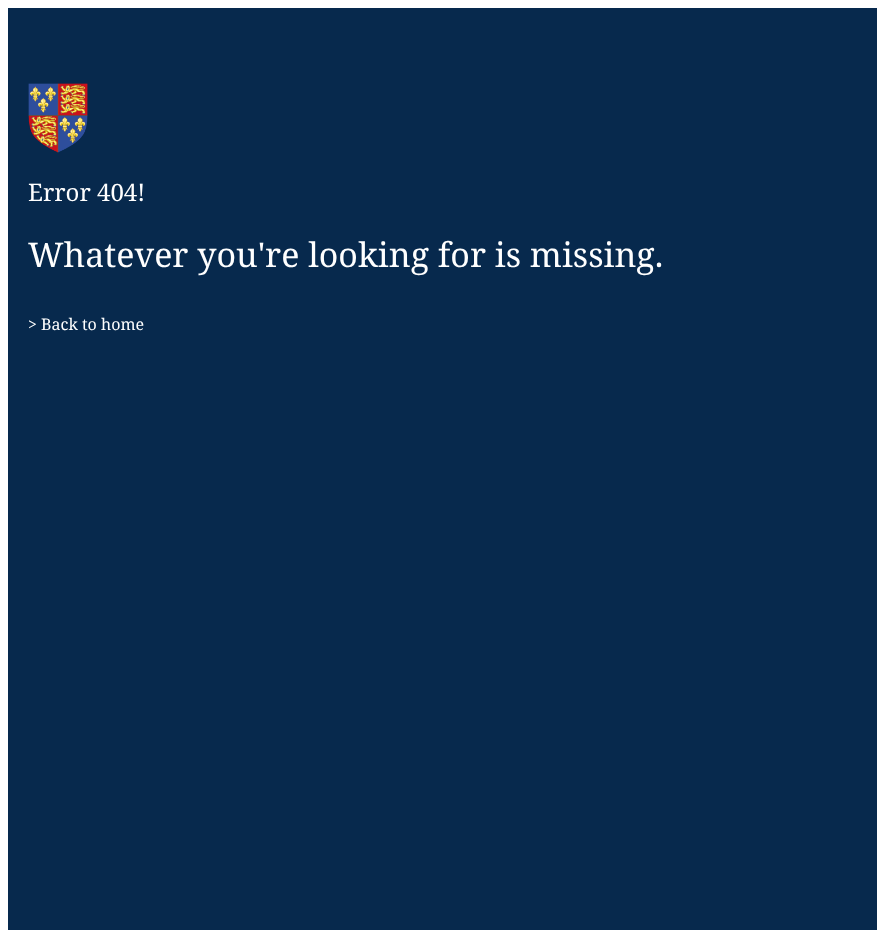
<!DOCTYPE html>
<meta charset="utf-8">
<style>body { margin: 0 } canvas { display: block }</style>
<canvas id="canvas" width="885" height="930"></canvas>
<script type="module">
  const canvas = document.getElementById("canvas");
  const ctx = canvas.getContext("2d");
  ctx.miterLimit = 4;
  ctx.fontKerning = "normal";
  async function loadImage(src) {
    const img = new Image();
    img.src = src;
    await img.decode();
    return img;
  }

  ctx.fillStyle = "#ffffff";
  ctx.fillRect(0, 0, 885, 930);
  ctx.fillStyle = "#07294d";
  ctx.fillRect(8, 8, 869, 922);
  ctx.drawImage(await loadImage("img1.png"), 28, 83, 60, 70);
  ctx.font = "24px Noto Serif";
  ctx.fillStyle = "#ffffff";
  ctx.fillText("Error 404!", 28, 201);
  ctx.font = "34px Noto Serif";
  ctx.fillText("Whatever you're looking for is missing.", 28, 267);
  ctx.font = "16px Noto Serif";
  ctx.fillText("> Back to home", 28, 330);
</script>
